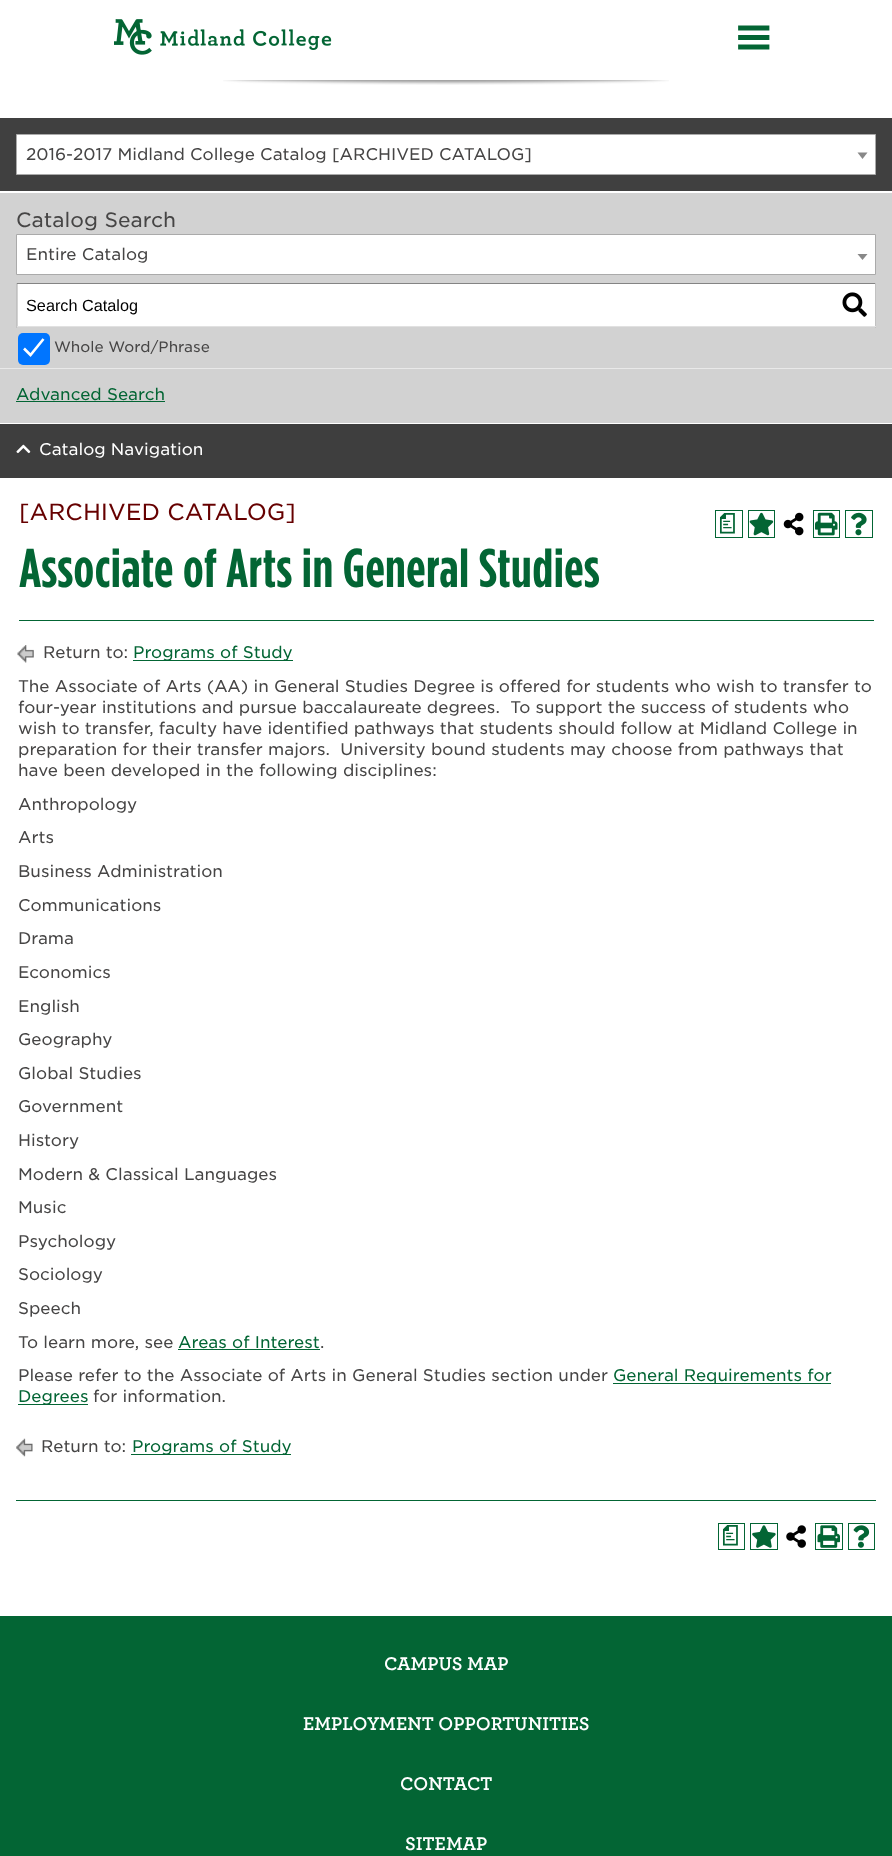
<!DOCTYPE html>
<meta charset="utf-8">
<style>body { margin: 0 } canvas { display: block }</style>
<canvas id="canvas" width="892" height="1856"></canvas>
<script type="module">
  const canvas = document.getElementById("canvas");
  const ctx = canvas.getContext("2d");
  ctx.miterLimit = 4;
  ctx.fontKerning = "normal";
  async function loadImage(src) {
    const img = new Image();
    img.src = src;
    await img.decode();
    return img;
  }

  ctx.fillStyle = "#ffffff";
  ctx.fillRect(0, 0, 892, 1856);
  ctx.drawImage(await loadImage("img1.png"), 114, 19, 218, 36);
  ctx.drawImage(await loadImage("img2.png"), 738, 25, 32, 25);
  ctx.drawImage(await loadImage("img3.png"), 223, 80, 446, 5);
  ctx.fillStyle = "#404040";
  ctx.fillRect(0, 118, 892, 73);
  ctx.fillStyle = "#ffffff";
  ctx.beginPath();
  ctx.rect(16.5, 134.5, 859, 40);
  ctx.fill();
  ctx.strokeStyle = "#aaaaaa";
  ctx.stroke();
  ctx.font = "300 16.25px 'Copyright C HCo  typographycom'";
  ctx.fillStyle = "#464545";
  ctx.fillText("2016-2017 Midland College Catalog [ARCHIVED CATALOG]", 26, 160);
  ctx.fillStyle = "#888888";
  ctx.beginPath();
  ctx.moveTo(857.5, 152.5);
  ctx.lineTo(867.5, 152.5);
  ctx.lineTo(862.5, 159);
  ctx.closePath();
  ctx.fill();
  ctx.fillStyle = "#d2d2d2";
  ctx.fillRect(0, 193, 892, 230);
  ctx.font = "300 20px 'Copyright C HCo  typographycom'";
  ctx.fillStyle = "#464545";
  ctx.fillText("Catalog Search", 16, 227);
  ctx.fillStyle = "#ffffff";
  ctx.beginPath();
  ctx.rect(16.5, 234.5, 859, 40);
  ctx.fill();
  ctx.stroke();
  ctx.font = "300 16.25px 'Copyright C HCo  typographycom'";
  ctx.fillStyle = "#464545";
  ctx.fillText("Entire Catalog", 26, 260);
  ctx.fillStyle = "#888888";
  ctx.beginPath();
  ctx.moveTo(857.5, 254);
  ctx.lineTo(867.5, 254);
  ctx.lineTo(862.5, 260);
  ctx.closePath();
  ctx.fill();
  ctx.fillStyle = "#ffffff";
  ctx.fillRect(18, 284, 857, 42);
  ctx.fillStyle = "#848484";
  ctx.fillRect(16, 283, 860, 1);
  ctx.fillStyle = "#c1c1c1";
  ctx.fillRect(875, 283, 1, 45);
  ctx.fillStyle = "#e1e1e1";
  ctx.fillRect(16, 326, 860, 1);
  ctx.fillStyle = "#c1c1c1";
  ctx.fillRect(16, 283, 1, 45);
  ctx.font = "16.25px Liberation Sans";
  ctx.fillStyle = "#000000";
  ctx.fillText("Search Catalog", 26, 311);
  ctx.drawImage(await loadImage("img4.png"), 842, 292, 25, 25);
  ctx.fillStyle = "#0075ff";
  ctx.beginPath();
  ctx.roundRect(18, 333, 32, 32, 5);
  ctx.fill();
  ctx.beginPath();
  ctx.moveTo(24, 348.5);
  ctx.lineTo(30.5, 355);
  ctx.lineTo(43.5, 339);
  ctx.strokeStyle = "#ffffff";
  ctx.lineWidth = 2.6;
  ctx.stroke();
  ctx.font = "300 14.6px 'Copyright C HCo  typographycom'";
  ctx.fillStyle = "#464545";
  ctx.fillText("Whole Word/Phrase", 54, 352);
  ctx.fillStyle = "#e9e9e9";
  ctx.fillRect(0, 368, 892, 1);
  ctx.font = "300 16.25px 'Copyright C HCo  typographycom'";
  ctx.fillStyle = "#036534";
  ctx.fillText("Advanced Search", 16, 400);
  ctx.fillRect(16, 401, 149, 1);
  ctx.fillStyle = "#3e3e3e";
  ctx.fillRect(0, 424, 892, 54);
  ctx.drawImage(await loadImage("img5.png"), 16, 444, 15, 10);
  ctx.fillStyle = "#ffffff";
  ctx.fillText("Catalog Navigation", 39, 455);
  ctx.font = "300 22.5px 'Copyright C HCo  typographycom'";
  ctx.fillStyle = "#660000";
  ctx.fillText("[ARCHIVED CATALOG]", 19, 520);
  ctx.strokeStyle = "#036534";
  ctx.lineWidth = 1;
  ctx.strokeRect(715.5, 510.5, 27, 27);
  ctx.font = "500 22.5px 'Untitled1'";
  ctx.fillStyle = "#036534";
  ctx.fillText("a", 716, 530);
  ctx.strokeRect(748.5, 510.5, 26, 27);
  ctx.drawImage(await loadImage("img6.png"), 749, 512, 25, 24);
  ctx.drawImage(await loadImage("img7.png"), 783, 512, 21, 24);
  ctx.strokeRect(813.5, 510.5, 26, 27);
  ctx.drawImage(await loadImage("img8.png"), 815, 512, 23, 24);
  ctx.strokeRect(845.5, 510.5, 27, 27);
  ctx.drawImage(await loadImage("img9.png"), 851, 512, 16, 24);
  ctx.font = "52.5px 'Copyright C HCo  typographycom'";
  ctx.fillText("Associate of Arts in General Studies", 19, 587);
  ctx.fillRect(19, 620, 855, 1);
  ctx.drawImage(await loadImage("img10.png"), 17, 645, 17, 18);
  ctx.font = "300 16.25px 'Copyright C HCo  typographycom'";
  ctx.fillStyle = "#464545";
  ctx.fillText("Return to:", 43, 658);
  ctx.fillStyle = "#036534";
  ctx.fillRect(133, 660, 160, 1);
  ctx.fillText("Programs of Study", 133, 658);
  ctx.fillStyle = "#464545";
  ctx.fillText("The Associate of Arts (AA) in General Studies Degree is offered for students who wish to transfer to", 18, 692);
  ctx.fillText("four-year institutions and pursue baccalaureate degrees.  To support the success of students who", 18, 713);
  ctx.fillText("wish to transfer, faculty have identified pathways that students should follow at Midland College in", 18, 734);
  ctx.fillText("preparation for their transfer majors.  University bound students may choose from pathways that", 18, 755);
  ctx.fillText("have been developed in the following disciplines:", 18, 776);
  ctx.fillText("Anthropology", 18, 810);
  ctx.fillText("Arts", 18, 843);
  ctx.fillText("Business Administration", 18, 877);
  ctx.fillText("Communications", 18, 911);
  ctx.fillText("Drama", 18, 944);
  ctx.fillText("Economics", 18, 978);
  ctx.fillText("English", 18, 1012);
  ctx.fillText("Geography", 18, 1045);
  ctx.fillText("Global Studies", 18, 1079);
  ctx.fillText("Government", 18, 1112);
  ctx.fillText("History", 18, 1146);
  ctx.fillText("Modern & Classical Languages", 18, 1180);
  ctx.fillText("Music", 18, 1213);
  ctx.fillText("Psychology", 18, 1247);
  ctx.fillText("Sociology", 18, 1280);
  ctx.fillText("Speech", 18, 1314);
  ctx.fillText("To learn more, see", 18, 1348);
  ctx.fillStyle = "#036534";
  ctx.fillText("Areas of Interest", 178, 1348);
  ctx.fillRect(178, 1349, 142, 1);
  ctx.fillStyle = "#464545";
  ctx.fillText(".", 320, 1348);
  ctx.fillText("Please refer to the Associate of Arts in General Studies section under", 18, 1381);
  ctx.fillStyle = "#036534";
  ctx.fillRect(613, 1383, 218, 1);
  ctx.fillText("General Requirements for", 613, 1381);
  ctx.fillRect(18, 1404, 70, 1);
  ctx.fillText("Degrees", 18, 1402);
  ctx.fillStyle = "#464545";
  ctx.fillText("for information.", 93, 1402);
  ctx.drawImage(await loadImage("img11.png"), 16, 1438, 17, 19);
  ctx.fillText("Return to:", 41, 1452);
  ctx.fillStyle = "#036534";
  ctx.fillRect(131, 1454, 160, 1);
  ctx.fillText("Programs of Study", 132, 1452);
  ctx.fillRect(16, 1500, 860, 1);
  ctx.strokeRect(718.5, 1523.5, 26, 26);
  ctx.font = "500 22.5px 'Untitled1'";
  ctx.fillText("a", 719, 1542);
  ctx.strokeRect(750.5, 1523.5, 27, 26);
  ctx.drawImage(await loadImage("img12.png"), 752, 1525, 24, 23);
  ctx.drawImage(await loadImage("img13.png"), 786, 1525, 20, 23);
  ctx.strokeRect(815.5, 1523.5, 27, 26);
  ctx.drawImage(await loadImage("img14.png"), 817, 1525, 23, 23);
  ctx.strokeRect(848.5, 1523.5, 26, 26);
  ctx.drawImage(await loadImage("img15.png"), 853, 1525, 17, 23);
  ctx.fillRect(0, 1616, 892, 240);
  ctx.font = "bold 17.5px 'Copyright C HCo  typographycom'";
  ctx.fillStyle = "#ffffff";
  ctx.fillText("CAMPUS MAP", 384, 1670);
  ctx.fillText("EMPLOYMENT OPPORTUNITIES", 303, 1730);
  ctx.fillText("CONTACT", 400, 1790);
  ctx.fillText("SITEMAP", 405, 1850);
</script>
